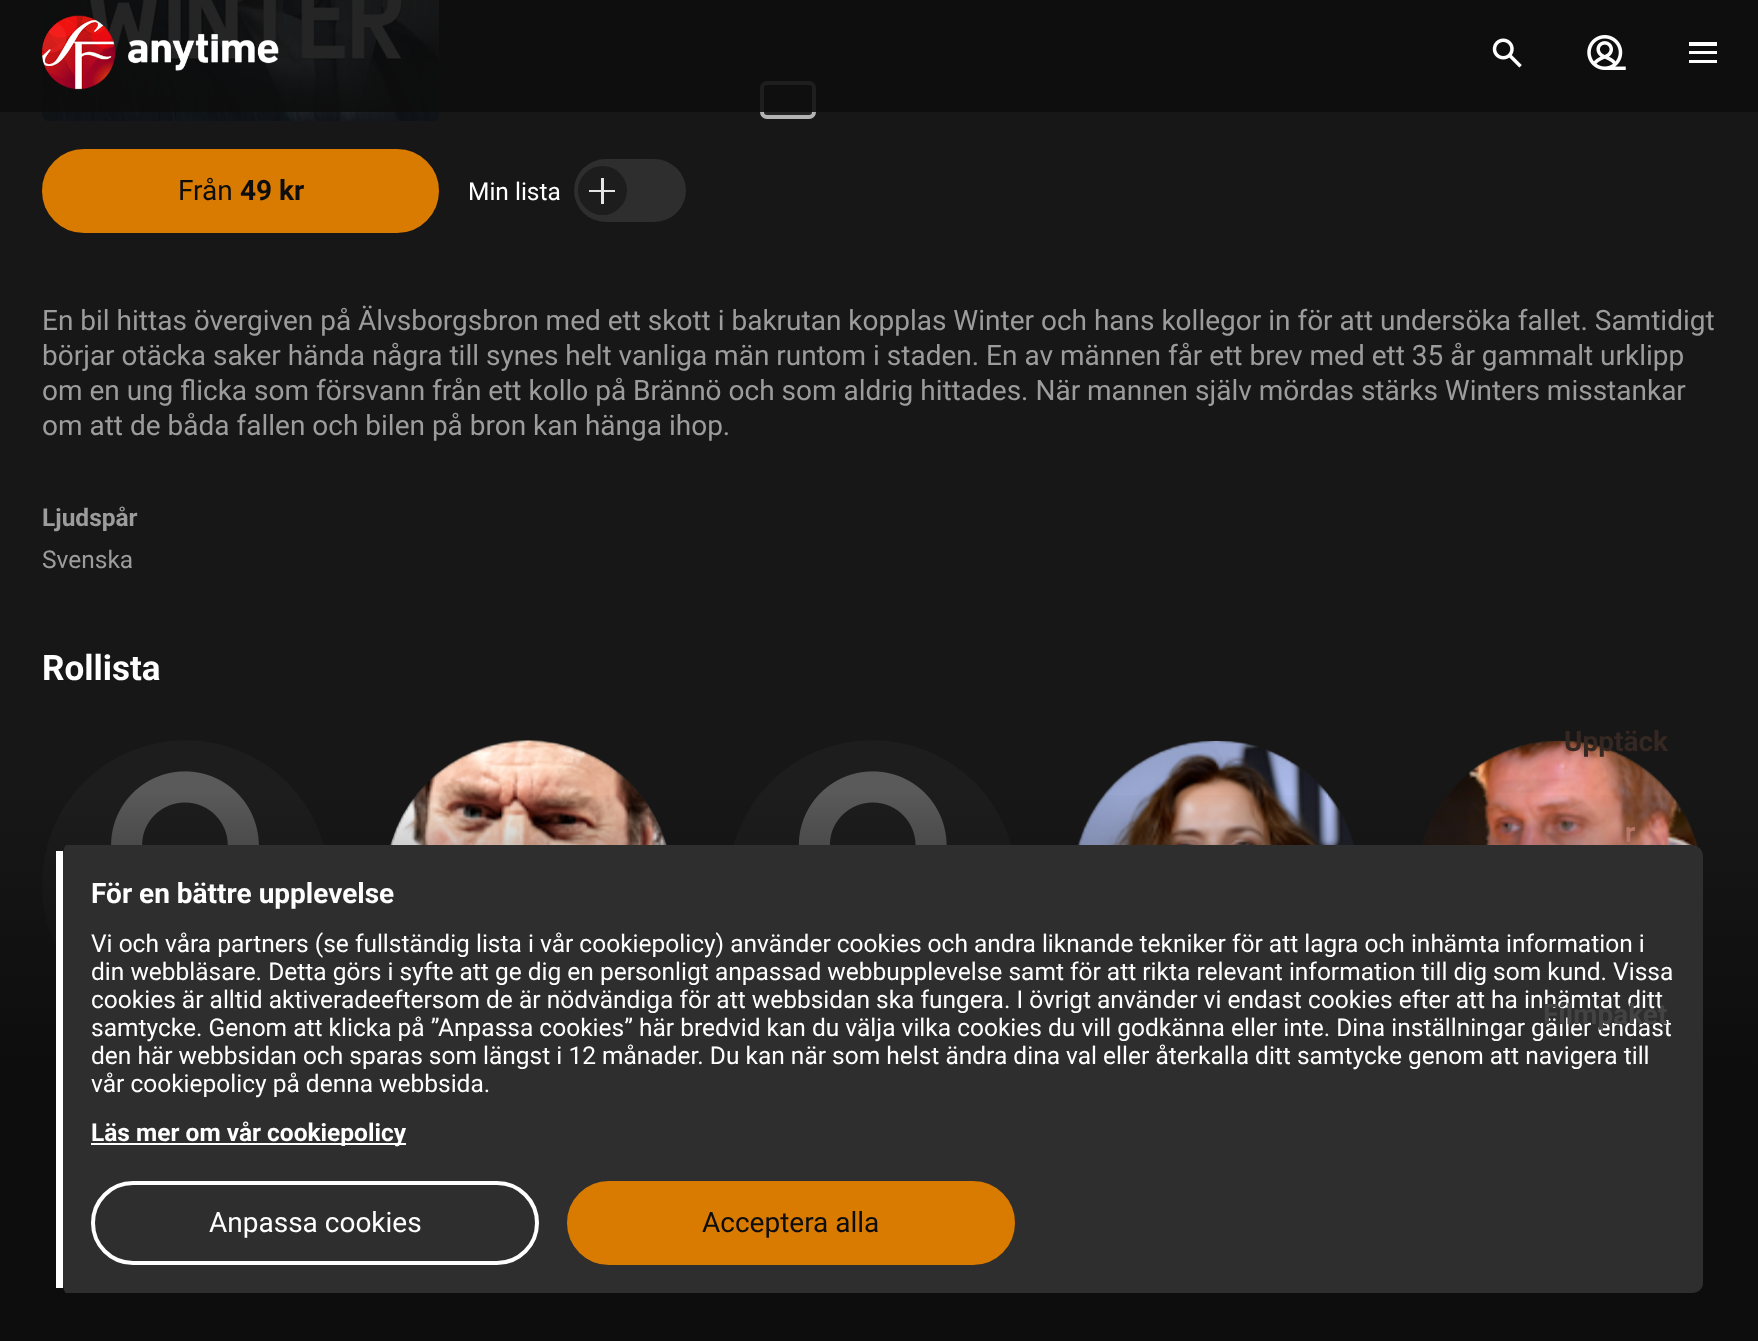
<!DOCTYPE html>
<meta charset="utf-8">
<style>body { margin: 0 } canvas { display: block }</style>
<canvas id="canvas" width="1758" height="1341"></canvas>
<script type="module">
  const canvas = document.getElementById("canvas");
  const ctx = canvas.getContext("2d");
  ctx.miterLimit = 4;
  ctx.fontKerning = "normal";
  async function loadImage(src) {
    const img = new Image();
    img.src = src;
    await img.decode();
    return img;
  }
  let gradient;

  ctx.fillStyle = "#171717";
  ctx.fillRect(0, 0, 1758, 1341);
  ctx.drawImage(await loadImage("img4.png"), 42, 0, 398, 121);
  ctx.fillStyle = "#232323";
  ctx.beginPath();
  ctx.roundRect(760, 81, 56, 38, 7);
  ctx.fill();
  ctx.beginPath();
  ctx.roundRect(762, 83, 52, 34, 5);
  ctx.strokeStyle = "rgba(229, 229, 229, 0.75)";
  ctx.lineWidth = 4;
  ctx.stroke();
  ctx.fillStyle = "rgba(13, 13, 13, 0.9)";
  ctx.fillRect(0, 0, 1758, 112);
  ctx.drawImage(await loadImage("img1.png"), 42, 15, 237, 75);
  ctx.drawImage(await loadImage("img2.png"), 1492, 38, 30, 30);
  ctx.drawImage(await loadImage("img3.png"), 1587, 35, 39, 35);
  ctx.fillStyle = "#ffffff";
  ctx.fillRect(1689, 60, 28, 3);
  ctx.fillRect(1689, 42, 28, 4);
  ctx.fillRect(1689, 51, 28, 3);
  ctx.fillStyle = "#d87b00";
  ctx.beginPath();
  ctx.roundRect(44, 151, 393, 80, 40);
  ctx.fill();
  ctx.strokeStyle = "#d87b00";
  ctx.stroke();
  ctx.font = "28px Roboto";
  ctx.fillStyle = "#0d0d0d";
  ctx.fillText("Från", 178, 200);
  ctx.font = "bold 28px Roboto";
  ctx.fillText("49 kr", 240, 200);
  ctx.font = "24.5px Roboto";
  ctx.fillStyle = "#ffffff";
  ctx.fillText("Min lista", 468, 200);
  ctx.fillStyle = "#2e2e2e";
  ctx.beginPath();
  ctx.roundRect(574, 159, 112, 63, 31.5);
  ctx.fill();
  ctx.fillStyle = "#1d1d1d";
  ctx.beginPath();
  ctx.arc(602.5, 190.5, 24.5, 0, Math.PI * 2);
  ctx.fill();
  ctx.fillStyle = "#e5e5e5";
  ctx.fillRect(589, 190, 26, 2);
  ctx.fillRect(601, 178, 3, 26);
  ctx.font = "28px Roboto";
  ctx.fillStyle = "#9c9c9c";
  ctx.fillText("En bil hittas övergiven på Älvsborgsbron med ett skott i bakrutan kopplas Winter och hans kollegor in för att undersöka fallet. Samtidigt", 42, 330);
  ctx.fillText("börjar otäcka saker hända några till synes helt vanliga män runtom i staden. En av männen får ett brev med ett 35 år gammalt urklipp", 42, 365);
  ctx.fillText("om en ung flicka som försvann från ett kollo på Brännö och som aldrig hittades. När mannen själv mördas stärks Winters misstankar", 42, 400);
  ctx.fillText("om att de båda fallen och bilen på bron kan hänga ihop.", 42, 435);
  ctx.font = "bold 24.5px Roboto";
  ctx.fillText("Ljudspår", 42, 526);
  ctx.font = "24.5px Roboto";
  ctx.fillText("Svenska", 42, 568);
  ctx.font = "bold 35px Roboto";
  ctx.fillStyle = "#ffffff";
  ctx.fillText("Rollista", 42, 680);
  ctx.fillStyle = "#1d1d1d";
  ctx.beginPath();
  ctx.roundRect(42, 740, 287, 289, 143.5);
  ctx.fill();
  ctx.drawImage(await loadImage("img5.png"), 111, 771, 148, 74);
  ctx.beginPath();
  ctx.roundRect(385, 740, 287, 289, 143.5);
  ctx.fill();
  ctx.drawImage(await loadImage("img6.png"), 390, 740, 277, 105);
  ctx.beginPath();
  ctx.arc(872.5, 884.5, 144.5, 0, Math.PI * 2);
  ctx.fill();
  ctx.drawImage(await loadImage("img7.png"), 798, 771, 149, 74);
  ctx.beginPath();
  ctx.roundRect(1073, 740, 287, 289, 143.5);
  ctx.fill();
  ctx.drawImage(await loadImage("img8.png"), 1077, 741, 278, 104);
  ctx.beginPath();
  ctx.roundRect(1416, 740, 287, 289, 143.5);
  ctx.fill();
  ctx.drawImage(await loadImage("img9.png"), 1420, 741, 279, 107);
  ctx.font = "bold 28px Roboto";
  ctx.fillStyle = "#352722";
  ctx.fillText("Upptäck", 1564, 751);
  gradient = ctx.createLinearGradient(879, 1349, 879, 789);
  gradient.addColorStop(0, "#0d0d0d");
  gradient.addColorStop(0.5, "#0d0d0d");
  gradient.addColorStop(1, "rgba(13, 13, 13, 0)");
  ctx.fillStyle = gradient;
  ctx.fillRect(0, 795, 1758, 546);
  ctx.fillStyle = "#b87767";
  ctx.fillText("r", 1625, 842);
  ctx.fillStyle = "#2e2e2e";
  ctx.beginPath();
  ctx.moveTo(66, 845);
  ctx.lineTo(1692, 845);
  ctx.bezierCurveTo(1698, 845, 1703, 850, 1703, 856);
  ctx.lineTo(1703, 1283);
  ctx.bezierCurveTo(1703, 1289, 1698, 1293, 1692, 1293);
  ctx.lineTo(66, 1293);
  ctx.bezierCurveTo(65, 1293, 63, 1289, 63, 1283);
  ctx.lineTo(63, 856);
  ctx.bezierCurveTo(63, 850, 65, 845, 66, 845);
  ctx.closePath();
  ctx.fill();
  ctx.font = "24.5px Roboto";
  ctx.fillStyle = "#ffffff";
  ctx.fillText("cookies är alltid aktiveradeeftersom de är nödvändiga för att webbsidan ska fungera. I övrigt använder vi endast cookies efter att ha inhämtat ditt", 91, 1008);
  ctx.fillText("samtycke. Genom att klicka på ”Anpassa cookies” här bredvid kan du välja vilka cookies du vill godkänna eller inte. Dina inställningar gäller endast", 91, 1036);
  ctx.font = "bold 28px Roboto";
  ctx.fillStyle = "#434343";
  ctx.fillText("Filmpaket", 1543, 1024);
  ctx.fillStyle = "#ffffff";
  ctx.fillRect(56, 851, 7, 437);
  ctx.fillText("För en bättre upplevelse", 91, 903);
  ctx.font = "24.5px Roboto";
  ctx.fillText("Vi och våra partners (se fullständig lista i vår cookiepolicy) använder cookies och andra liknande tekniker för att lagra och inhämta information i", 91, 952);
  ctx.fillText("din webbläsare. Detta görs i syfte att ge dig en personligt anpassad webbupplevelse samt för att rikta relevant information till dig som kund. Vissa", 91, 980);
  ctx.fillText("den här webbsidan och sparas som längst i 12 månader. Du kan när som helst ändra dina val eller återkalla ditt samtycke genom att navigera till", 91, 1064);
  ctx.fillText("vår cookiepolicy på denna webbsida.", 91, 1092);
  ctx.fillRect(91, 1143, 315, 2);
  ctx.font = "bold 24.5px Roboto";
  ctx.fillText("Läs mer om vår cookiepolicy", 91, 1141);
  ctx.beginPath();
  ctx.roundRect(93, 1183, 444, 80, 40);
  ctx.strokeStyle = "#ffffff";
  ctx.stroke();
  ctx.font = "28px Roboto";
  ctx.fillText("Anpassa cookies", 209, 1232);
  ctx.fillStyle = "#d87b00";
  ctx.beginPath();
  ctx.roundRect(569, 1183, 444, 80, 40);
  ctx.fill();
  ctx.strokeStyle = "#d87b00";
  ctx.stroke();
  ctx.fillStyle = "#0d0d0d";
  ctx.fillText("Acceptera alla", 702, 1232);
</script>
